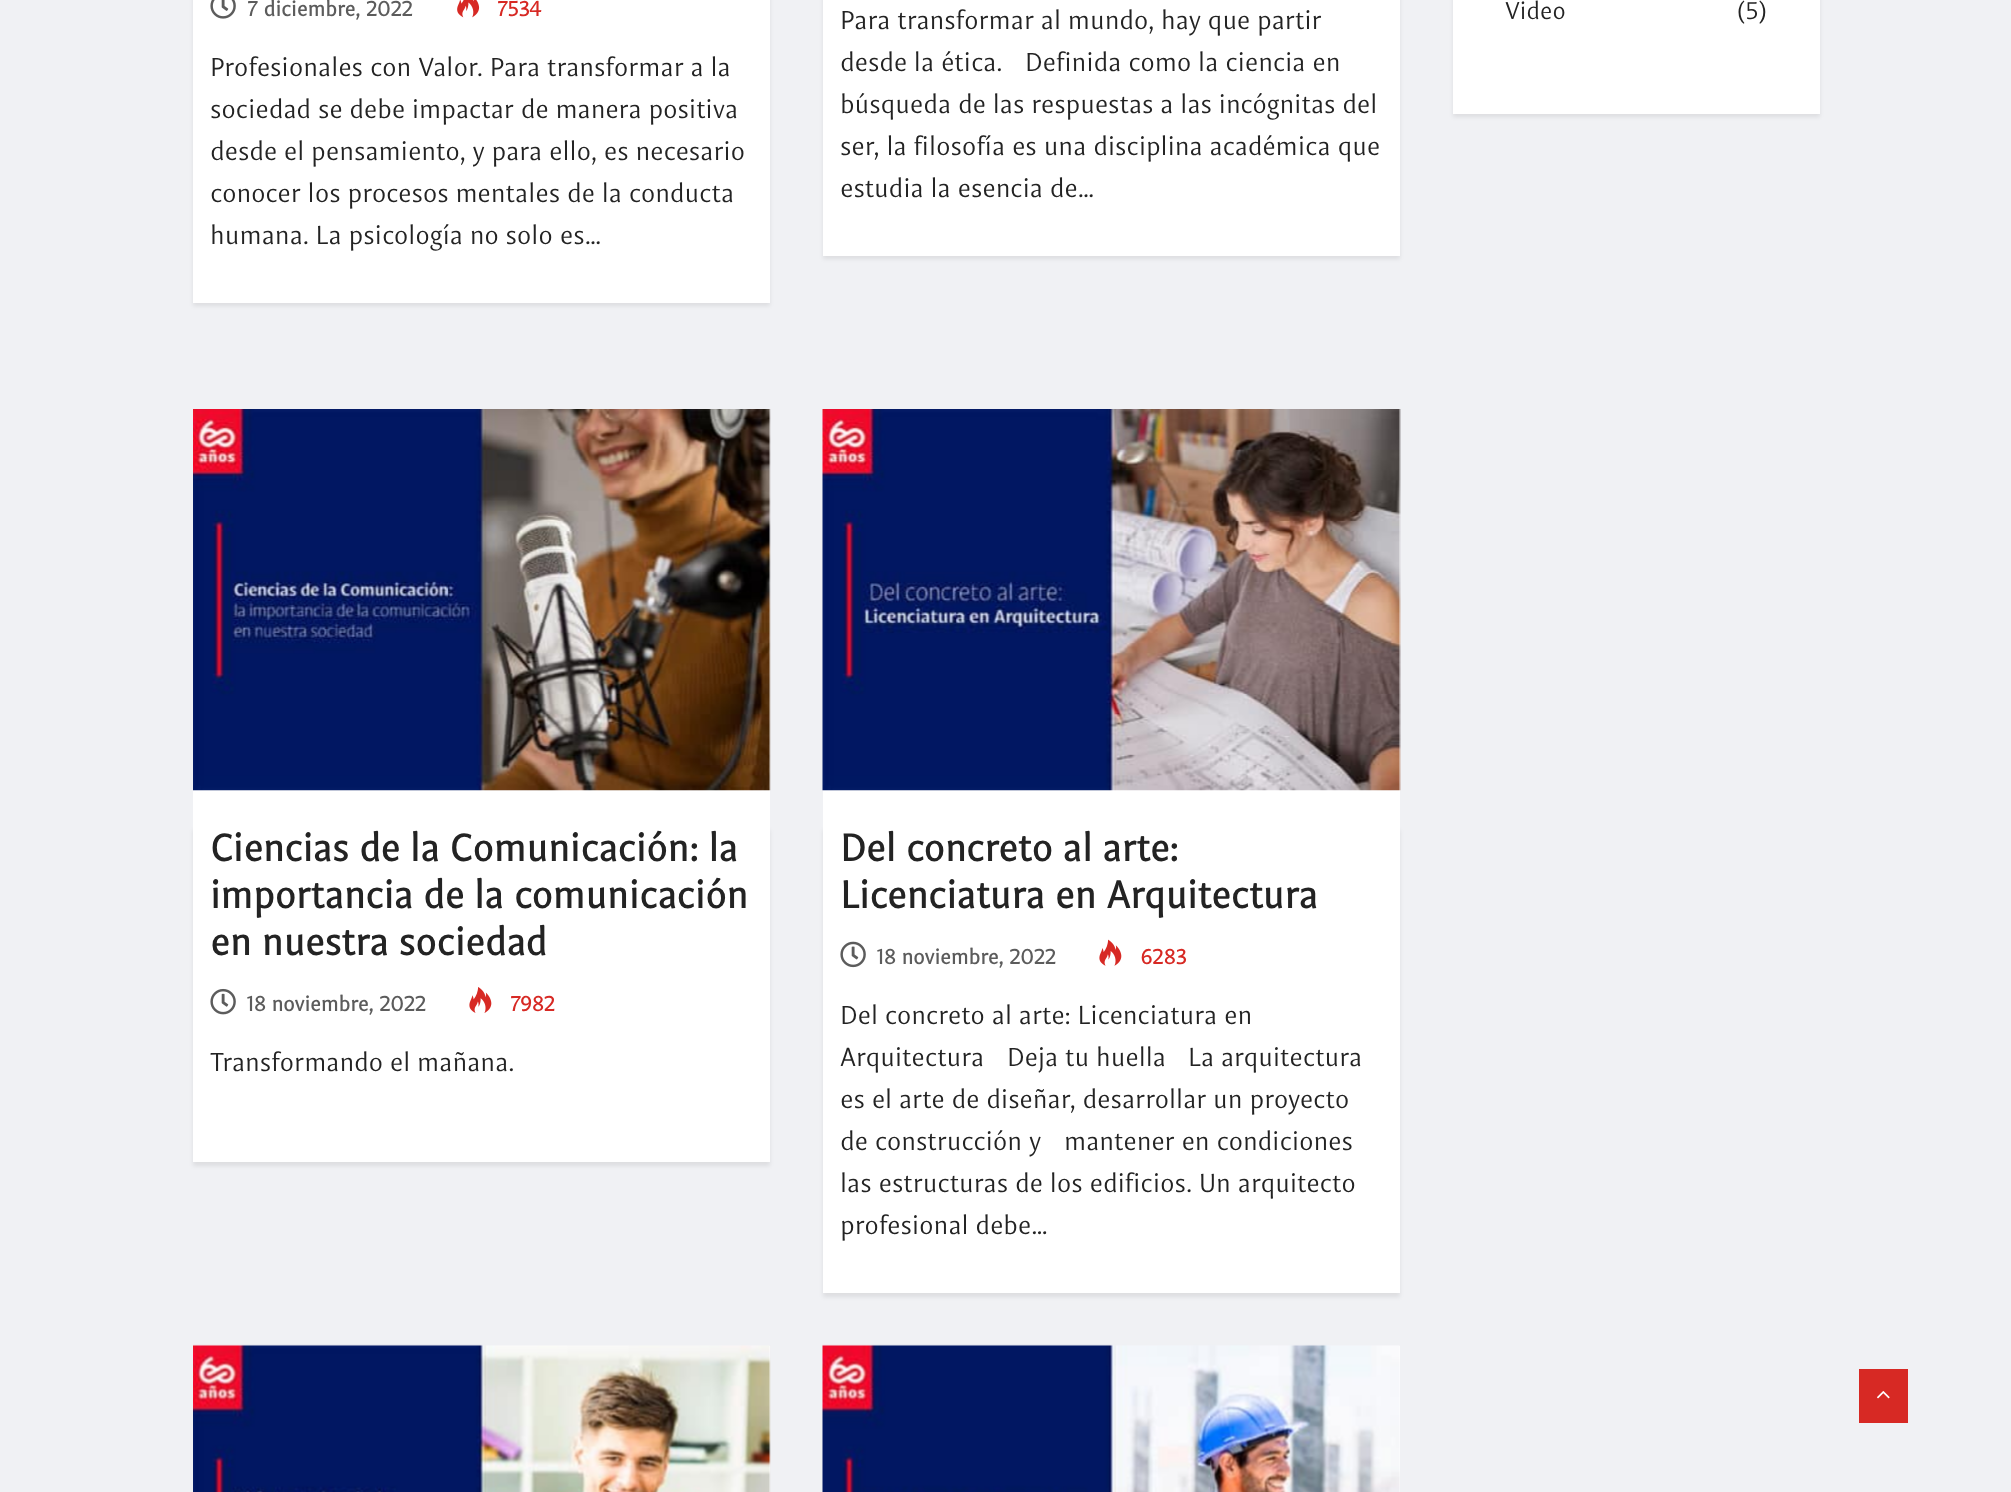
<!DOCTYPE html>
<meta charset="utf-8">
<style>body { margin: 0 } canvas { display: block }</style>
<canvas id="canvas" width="2011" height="1492"></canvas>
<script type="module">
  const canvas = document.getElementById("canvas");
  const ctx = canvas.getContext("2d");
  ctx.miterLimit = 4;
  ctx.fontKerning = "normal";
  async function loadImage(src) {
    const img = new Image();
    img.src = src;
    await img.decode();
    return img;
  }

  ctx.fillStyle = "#f0f1f4";
  ctx.fillRect(0, 0, 2011, 1492);
  ctx.fillStyle = "#ffffff";
  ctx.fillRect(193, 0, 577, 303);
  ctx.save();
  ctx.beginPath();
  ctx.moveTo(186, 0);
  ctx.lineTo(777, 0);
  ctx.lineTo(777, 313);
  ctx.lineTo(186, 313);
  ctx.closePath();
  ctx.moveTo(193, -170);
  ctx.lineTo(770, -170);
  ctx.lineTo(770, 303);
  ctx.lineTo(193, 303);
  ctx.closePath();
  ctx.clip("evenodd");
  ctx.fillStyle = "rgba(0, 0, 0, 0.08)";
  ctx.filter = "blur(2px)";
  ctx.beginPath();
  ctx.rect(193, -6, 577, 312);
  ctx.fill();
  ctx.filter = "none";
  ctx.restore();
  ctx.drawImage(await loadImage("img1.png"), 210, 0, 26, 19);
  ctx.font = "bold 21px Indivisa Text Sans";
  ctx.fillStyle = "#5c5c5c";
  ctx.fillText("7 diciembre, 2022", 247, 16);
  ctx.drawImage(await loadImage("img2.png"), 457, 0, 23, 18);
  ctx.fillStyle = "#d72924";
  ctx.fillText("7534", 497, 16);
  ctx.font = "26.25px Indivisa Text Sans";
  ctx.fillStyle = "#232323";
  ctx.fillText("Profesionales con Valor. Para transformar a la", 210, 76);
  ctx.fillText("sociedad se debe impactar de manera positiva", 210, 118);
  ctx.fillText("desde el pensamiento, y para ello, es necesario", 210, 160);
  ctx.fillText("conocer los procesos mentales de la conducta", 210, 202);
  ctx.fillText("humana. La psicología no solo es…", 210, 244);
  ctx.fillStyle = "#ffffff";
  ctx.fillRect(823, 0, 577, 256);
  ctx.save();
  ctx.beginPath();
  ctx.moveTo(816, 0);
  ctx.lineTo(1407, 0);
  ctx.lineTo(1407, 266);
  ctx.lineTo(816, 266);
  ctx.closePath();
  ctx.moveTo(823, -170);
  ctx.lineTo(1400, -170);
  ctx.lineTo(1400, 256);
  ctx.lineTo(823, 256);
  ctx.closePath();
  ctx.clip("evenodd");
  ctx.fillStyle = "rgba(0, 0, 0, 0.08)";
  ctx.filter = "blur(2px)";
  ctx.beginPath();
  ctx.rect(823, -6, 577, 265);
  ctx.fill();
  ctx.filter = "none";
  ctx.restore();
  ctx.fillStyle = "#232323";
  ctx.fillText("Para transformar al mundo, hay que partir", 840, 29);
  ctx.fillText("desde la ética.", 840, 71);
  ctx.fillText("Definida como la ciencia en", 1025, 71);
  ctx.fillText("búsqueda de las respuestas a las incógnitas del", 840, 113);
  ctx.fillText("ser, la filosofía es una disciplina académica que", 840, 155);
  ctx.fillText("estudia la esencia de…", 840, 197);
  ctx.fillStyle = "#ffffff";
  ctx.fillRect(193, 410, 577, 752);
  ctx.drawImage(await loadImage("img3.png"), 193, 409, 578, 382);
  ctx.save();
  ctx.beginPath();
  ctx.moveTo(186, 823);
  ctx.lineTo(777, 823);
  ctx.lineTo(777, 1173);
  ctx.lineTo(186, 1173);
  ctx.closePath();
  ctx.moveTo(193, 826);
  ctx.lineTo(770, 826);
  ctx.lineTo(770, 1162);
  ctx.lineTo(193, 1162);
  ctx.closePath();
  ctx.clip("evenodd");
  ctx.fillStyle = "rgba(0, 0, 0, 0.08)";
  ctx.filter = "blur(2px)";
  ctx.beginPath();
  ctx.rect(193, 830, 577, 336);
  ctx.fill();
  ctx.filter = "none";
  ctx.restore();
  ctx.font = "bold 38.5px Indivisa Text Sans";
  ctx.fillStyle = "#232323";
  ctx.fillText("Ciencias de la Comunicación: la", 210, 861);
  ctx.fillText("importancia de la comunicación", 210, 908);
  ctx.fillText("en nuestra sociedad", 210, 955);
  ctx.drawImage(await loadImage("img4.png"), 210, 988, 26, 27);
  ctx.font = "bold 21px Indivisa Text Sans";
  ctx.fillStyle = "#5c5c5c";
  ctx.fillText("18 noviembre, 2022", 247, 1011);
  ctx.drawImage(await loadImage("img5.png"), 469, 987, 23, 26);
  ctx.fillStyle = "#d72924";
  ctx.fillText("7982", 510, 1011);
  ctx.font = "26.25px Indivisa Text Sans";
  ctx.fillStyle = "#232323";
  ctx.fillText("Transformando el mañana.", 210, 1071);
  ctx.fillStyle = "#ffffff";
  ctx.fillRect(823, 410, 577, 883);
  ctx.drawImage(await loadImage("img6.png"), 822, 409, 579, 382);
  ctx.save();
  ctx.beginPath();
  ctx.moveTo(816, 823);
  ctx.lineTo(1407, 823);
  ctx.lineTo(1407, 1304);
  ctx.lineTo(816, 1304);
  ctx.closePath();
  ctx.moveTo(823, 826);
  ctx.lineTo(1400, 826);
  ctx.lineTo(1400, 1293);
  ctx.lineTo(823, 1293);
  ctx.closePath();
  ctx.clip("evenodd");
  ctx.fillStyle = "rgba(0, 0, 0, 0.08)";
  ctx.filter = "blur(2px)";
  ctx.beginPath();
  ctx.rect(823, 830, 577, 467);
  ctx.fill();
  ctx.filter = "none";
  ctx.restore();
  ctx.font = "bold 38.5px Indivisa Text Sans";
  ctx.fillStyle = "#232323";
  ctx.fillText("Del concreto al arte:", 840, 861);
  ctx.fillText("Licenciatura en Arquitectura", 840, 908);
  ctx.drawImage(await loadImage("img7.png"), 840, 941, 26, 27);
  ctx.font = "bold 21px Indivisa Text Sans";
  ctx.fillStyle = "#5c5c5c";
  ctx.fillText("18 noviembre, 2022", 877, 964);
  ctx.drawImage(await loadImage("img8.png"), 1099, 939, 23, 27);
  ctx.fillStyle = "#d72924";
  ctx.fillText("6283", 1140, 964);
  ctx.font = "26.25px Indivisa Text Sans";
  ctx.fillStyle = "#232323";
  ctx.fillText("Del concreto al arte: Licenciatura en", 840, 1024);
  ctx.fillText("Arquitectura", 840, 1066);
  ctx.fillText("Deja tu huella", 1007, 1066);
  ctx.fillText("La arquitectura", 1188, 1066);
  ctx.fillText("es el arte de diseñar, desarrollar un proyecto", 840, 1108);
  ctx.fillText("de construcción y", 840, 1150);
  ctx.fillText("mantener en condiciones", 1064, 1150);
  ctx.fillText("las estructuras de los edificios. Un arquitecto", 840, 1192);
  ctx.fillText("profesional debe…", 840, 1234);
  ctx.fillStyle = "#ffffff";
  ctx.fillRect(769, 1346, 1, 146);
  ctx.drawImage(await loadImage("img9.png"), 193, 1344, 578, 148);
  ctx.fillRect(1399, 1346, 1, 146);
  ctx.drawImage(await loadImage("img10.png"), 822, 1344, 578, 148);
  ctx.fillStyle = "rgba(0, 0, 0, 0.08)";
  ctx.filter = "blur(2px)";
  ctx.beginPath();
  ctx.rect(1453, -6, 367, 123);
  ctx.fill();
  ctx.filter = "none";
  ctx.fillStyle = "#ffffff";
  ctx.fillRect(1453, 0, 367, 114);
  ctx.font = "24.5px Indivisa Text Sans";
  ctx.fillStyle = "#232323";
  ctx.fillText("Video", 1505, 19);
  ctx.fillText("(5)", 1736, 19);
  ctx.fillStyle = "#d72924";
  ctx.fillRect(1859, 1369, 49, 54);
  ctx.drawImage(await loadImage("img11.png"), 1877, 1391, 13, 8);
</script>
